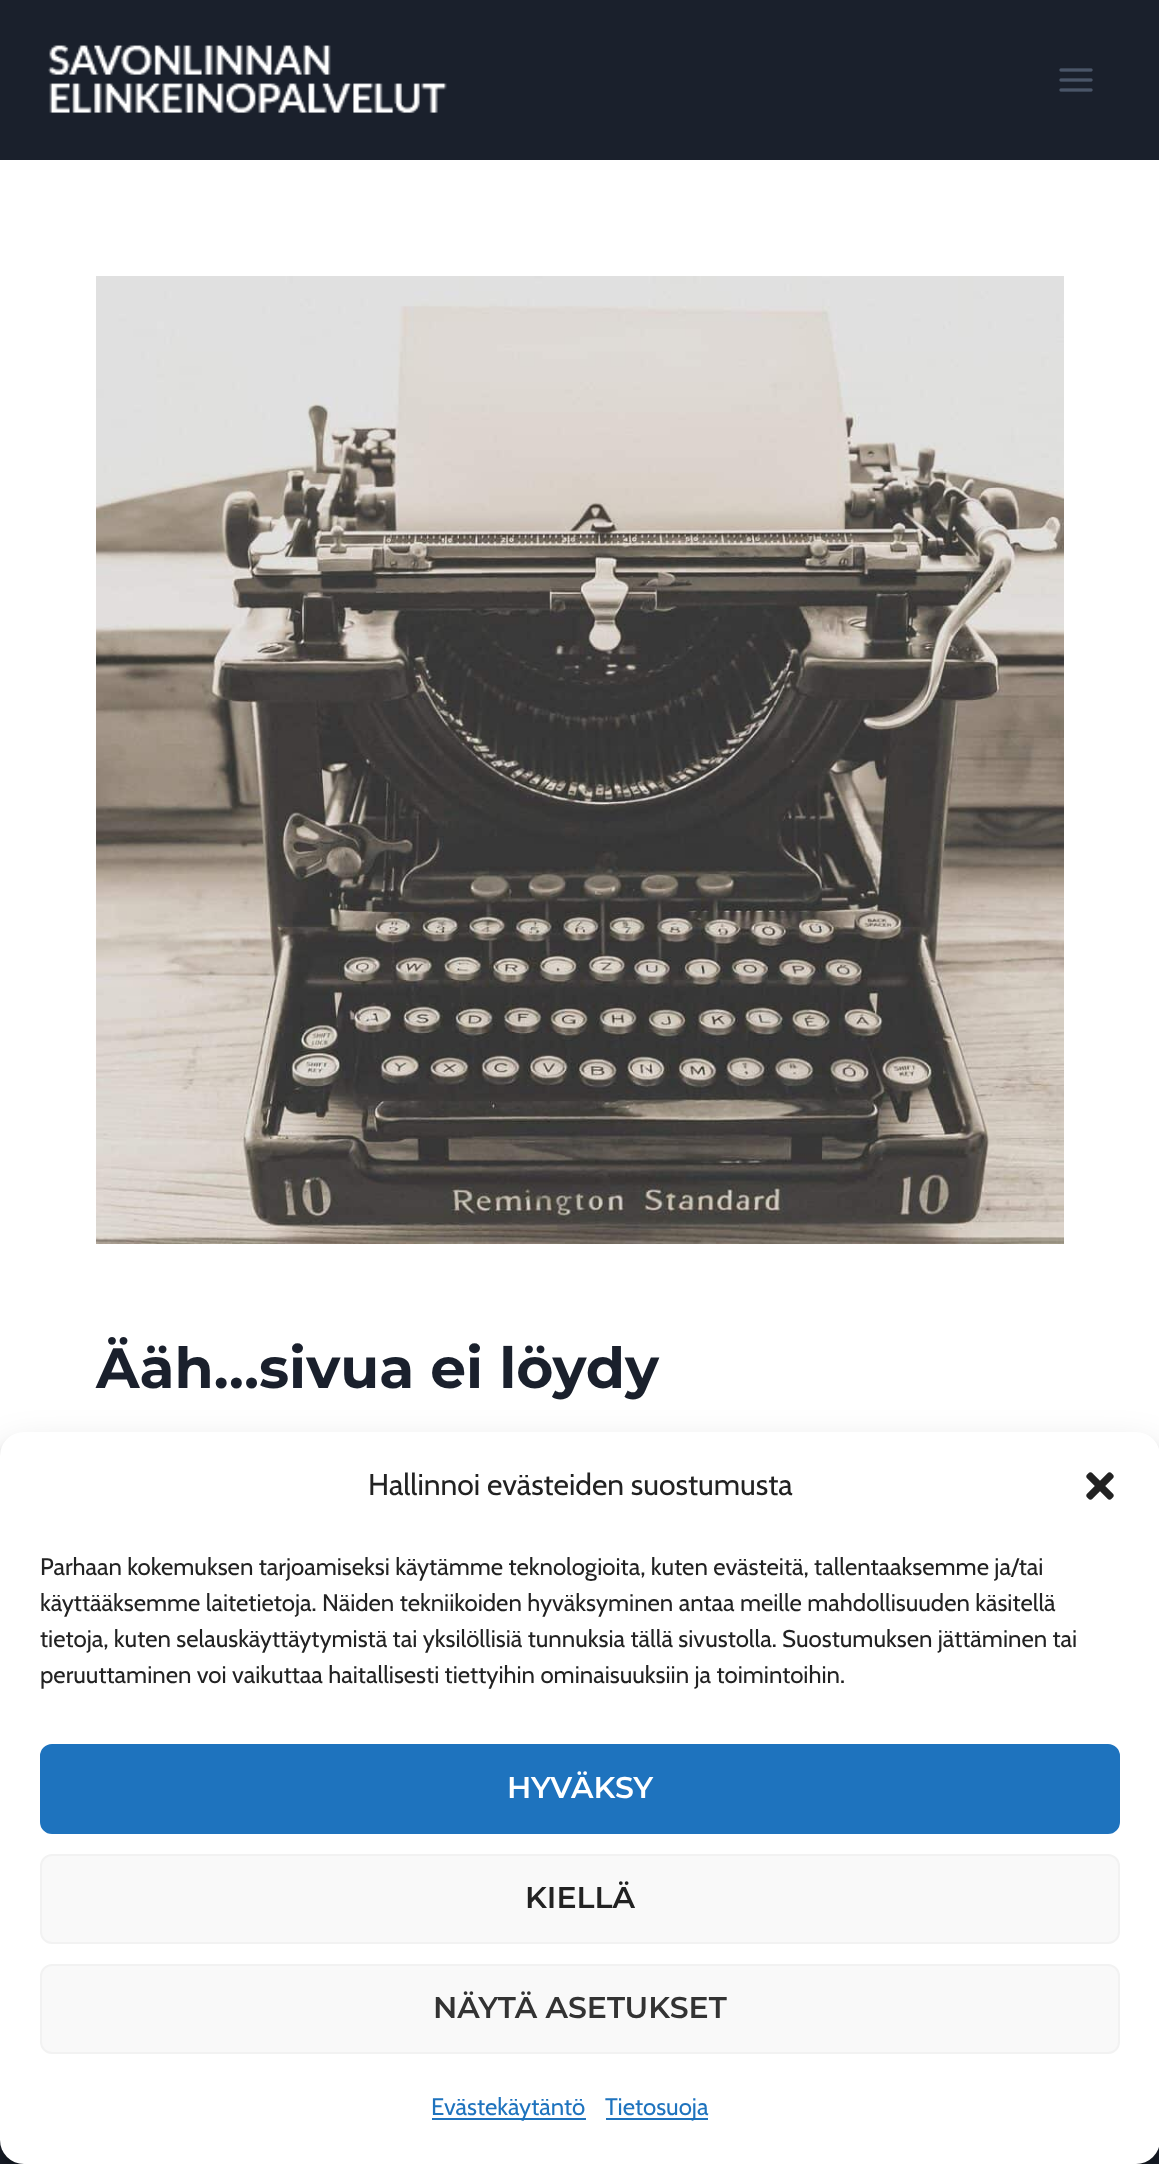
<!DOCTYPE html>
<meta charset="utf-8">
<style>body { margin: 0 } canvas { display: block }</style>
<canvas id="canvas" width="1159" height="2164"></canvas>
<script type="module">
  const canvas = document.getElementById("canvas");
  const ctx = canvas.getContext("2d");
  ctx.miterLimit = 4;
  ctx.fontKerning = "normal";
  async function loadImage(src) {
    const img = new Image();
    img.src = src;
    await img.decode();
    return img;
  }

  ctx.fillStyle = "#ffffff";
  ctx.fillRect(0, 0, 1159, 2164);
  ctx.fillStyle = "#1a202c";
  ctx.fillRect(0, 0, 1159, 160);
  ctx.drawImage(await loadImage("img1.png"), 48, 45, 399, 68);
  ctx.drawImage(await loadImage("img2.png"), 1059, 68, 34, 24);
  ctx.drawImage(await loadImage("img3.png"), 96, 276, 968, 968);
  ctx.font = "bold 56.75px Montserrat";
  ctx.fillText("Ääh…sivua ei löydy", 96, 1388);
  ctx.fillRect(0, 2140, 1159, 24);
  ctx.fillStyle = "rgba(0, 0, 0, 0.23)";
  ctx.filter = "blur(6px)";
  ctx.beginPath();
  ctx.roundRect(0, 1444, 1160, 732, 24);
  ctx.fill();
  ctx.filter = "none";
  ctx.fillStyle = "rgba(0, 0, 0, 0.19)";
  ctx.filter = "blur(20px)";
  ctx.beginPath();
  ctx.roundRect(0, 1452, 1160, 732, 24);
  ctx.fill();
  ctx.filter = "none";
  ctx.fillStyle = "#ffffff";
  ctx.beginPath();
  ctx.roundRect(0, 1432, 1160, 732, 24);
  ctx.fill();
  ctx.font = "30px Cabin";
  ctx.fillStyle = "#222222";
  ctx.fillText("Hallinnoi evästeiden suostumusta", 368, 1495);
  ctx.drawImage(await loadImage("img4.png"), 1086, 1472, 28, 28);
  ctx.font = "24px Cabin";
  ctx.fillText("Parhaan kokemuksen tarjoamiseksi käytämme teknologioita, kuten evästeitä, tallentaaksemme ja/tai", 40, 1575);
  ctx.fillText("käyttääksemme laitetietoja. Näiden tekniikoiden hyväksyminen antaa meille mahdollisuuden käsitellä", 40, 1611);
  ctx.fillText("tietoja, kuten selauskäyttäytymistä tai yksilöllisiä tunnuksia tällä sivustolla. Suostumuksen jättäminen tai", 40, 1647);
  ctx.fillText("peruuttaminen voi vaikuttaa haitallisesti tiettyihin ominaisuuksiin ja toimintoihin.", 40, 1683);
  ctx.fillStyle = "#1e73be";
  ctx.beginPath();
  ctx.roundRect(41, 1745, 1078, 88, 11);
  ctx.fill();
  ctx.strokeStyle = "#1e73be";
  ctx.lineWidth = 2;
  ctx.stroke();
  ctx.font = "600 30px Montserrat";
  ctx.fillStyle = "#ffffff";
  ctx.fillText("HYVÄKSY", 507, 1798);
  ctx.fillStyle = "#f9f9f9";
  ctx.beginPath();
  ctx.roundRect(41, 1855, 1078, 88, 11);
  ctx.fill();
  ctx.strokeStyle = "#f2f2f2";
  ctx.stroke();
  ctx.fillStyle = "#222222";
  ctx.fillText("KIELLÄ", 525, 1908);
  ctx.fillStyle = "#f9f9f9";
  ctx.beginPath();
  ctx.roundRect(41, 1965, 1078, 88, 11);
  ctx.fill();
  ctx.stroke();
  ctx.fillStyle = "#333333";
  ctx.fillText("NÄYTÄ ASETUKSET", 433, 2018);
  ctx.fillStyle = "#1e73be";
  ctx.fillRect(432, 2118, 154, 2);
  ctx.font = "24px Cabin";
  ctx.fillText("Evästekäytäntö", 431, 2115);
  ctx.fillRect(606, 2118, 102, 2);
  ctx.fillText("Tietosuoja", 605, 2115);
</script>
